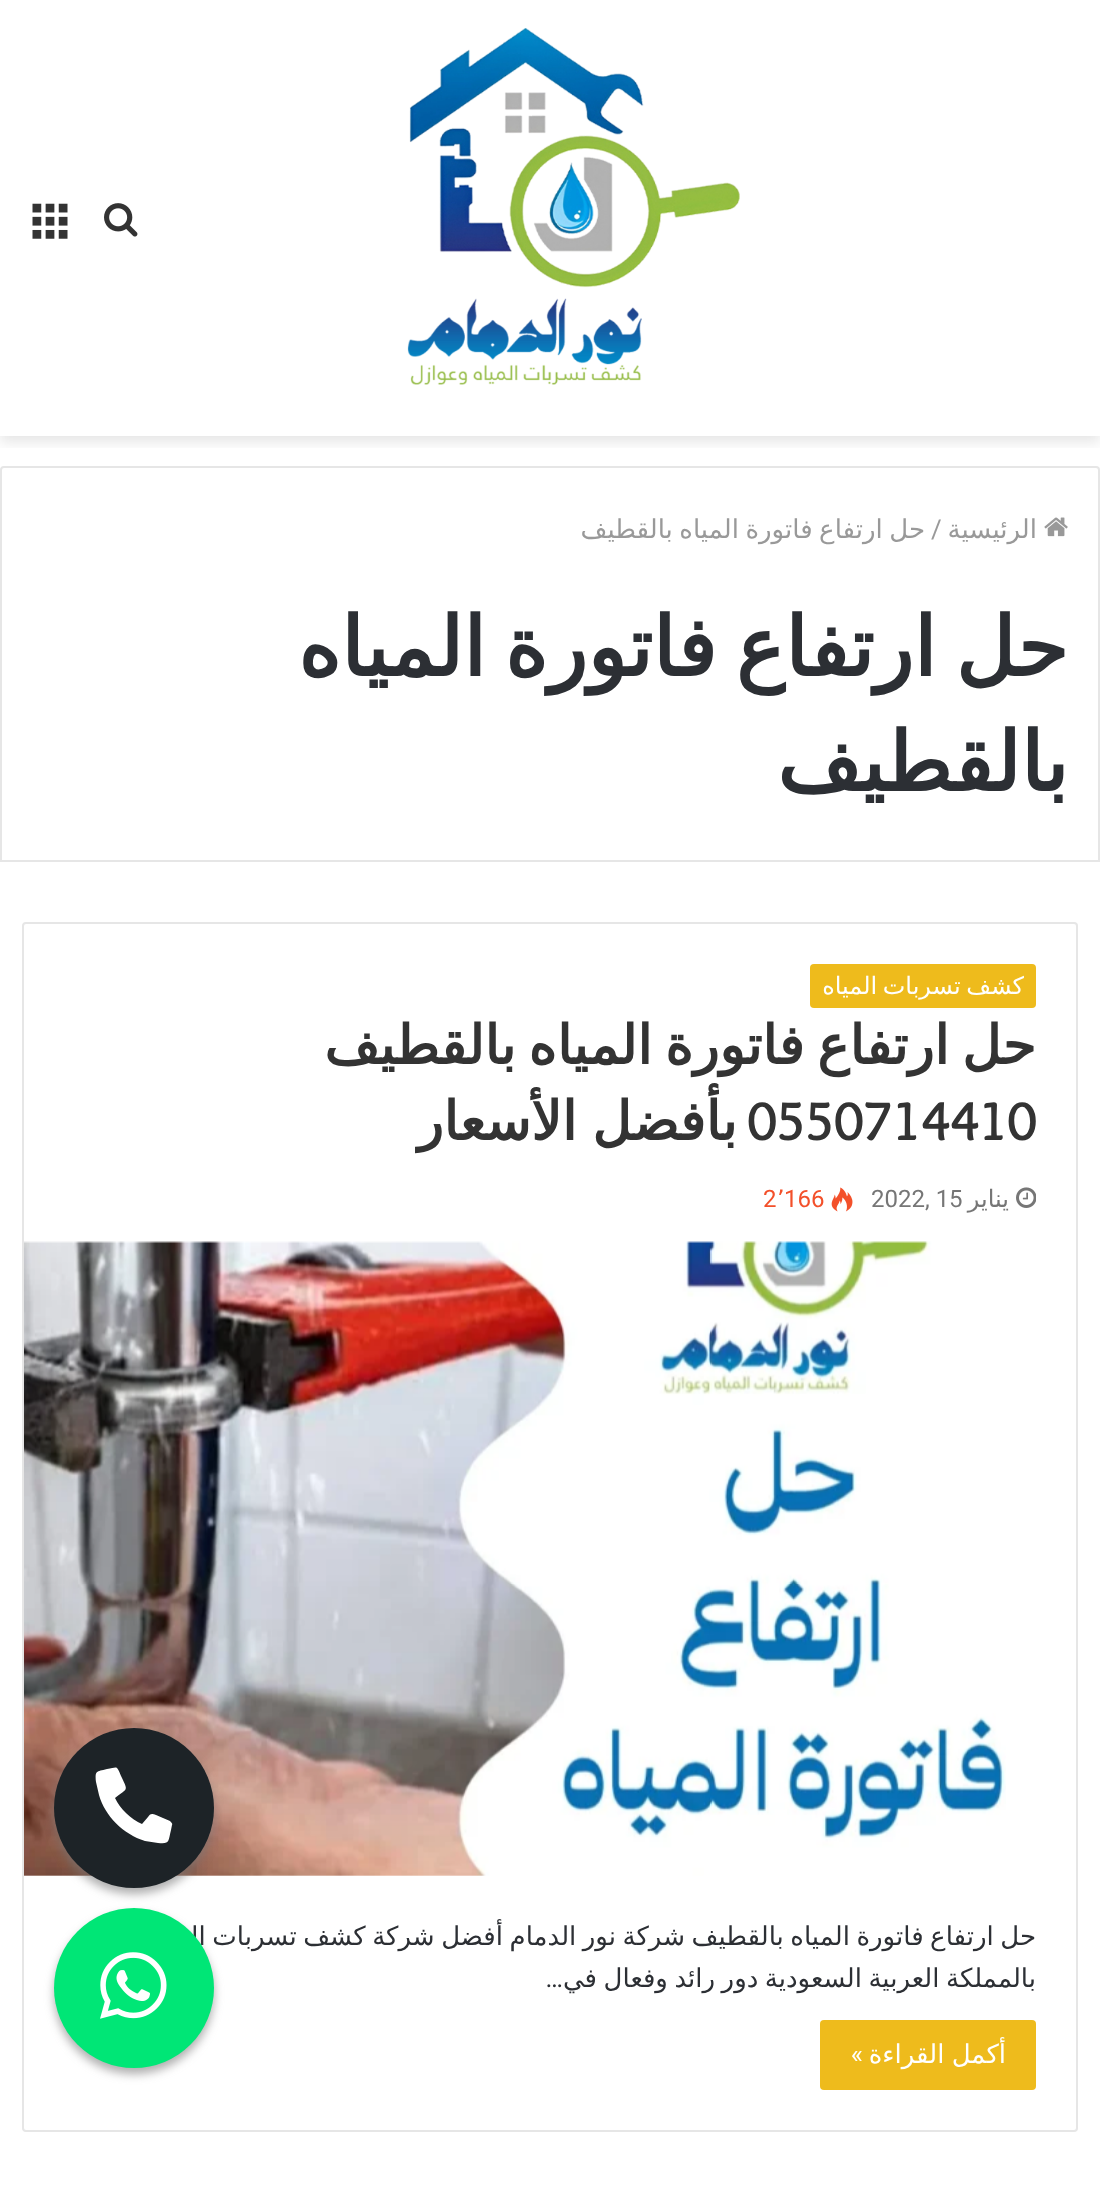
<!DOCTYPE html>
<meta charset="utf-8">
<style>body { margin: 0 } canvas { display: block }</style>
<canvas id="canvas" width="1100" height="2210"></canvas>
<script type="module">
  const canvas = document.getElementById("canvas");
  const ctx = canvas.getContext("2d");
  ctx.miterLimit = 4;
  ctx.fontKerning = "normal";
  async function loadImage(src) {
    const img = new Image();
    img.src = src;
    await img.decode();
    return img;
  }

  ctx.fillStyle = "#ffffff";
  ctx.fillRect(0, 0, 1100, 2210);
  ctx.save();
  ctx.beginPath();
  ctx.rect(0, 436, 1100, 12);
  ctx.clip();
  ctx.fillStyle = "rgba(0, 0, 0, 0.1)";
  ctx.filter = "blur(7px)";
  ctx.beginPath();
  ctx.rect(0, 6, 1100, 436);
  ctx.fill();
  ctx.filter = "none";
  ctx.restore();
  ctx.drawImage(await loadImage("img1.png"), 407, 28, 333, 357);
  ctx.drawImage(await loadImage("img2.png"), 104, 203, 34, 34);
  ctx.drawImage(await loadImage("img3.png"), 32, 203, 36, 36);
  ctx.beginPath();
  ctx.roundRect(1, 467, 1098, 394, [3, 3, 0, 0]);
  ctx.strokeStyle = "#e6e6e6";
  ctx.lineWidth = 2;
  ctx.stroke();
  ctx.drawImage(await loadImage("img4.png"), 1044, 517, 24, 20);
  ctx.direction = "rtl";
  ctx.font = "26px DejaVu Sans";
  ctx.fillStyle = "#999999";
  ctx.fillText("الرئيسية", 1037, 538);
  ctx.direction = "ltr";
  ctx.font = "26px Roboto";
  ctx.fillText("/", 931, 538);
  ctx.wordSpacing = "-1.75px";
  ctx.direction = "rtl";
  ctx.font = "26px DejaVu Sans";
  ctx.fillText("حل ارتفاع فاتورة المياه بالقطيف", 925, 538);
  ctx.wordSpacing = "-7px";
  ctx.font = "bold 82px DejaVu Sans";
  ctx.fillStyle = "#2c2f34";
  ctx.fillText("حل ارتفاع فاتورة المياه", 1068, 676);
  ctx.wordSpacing = "0px";
  ctx.fillText("بالقطيف", 1068, 791);
  ctx.beginPath();
  ctx.roundRect(23, 923, 1054, 1208, 3);
  ctx.stroke();
  ctx.fillStyle = "#eebb1c";
  ctx.beginPath();
  ctx.roundRect(810, 964, 226, 44, 4);
  ctx.fill();
  ctx.wordSpacing = "-2px";
  ctx.font = "24px DejaVu Sans";
  ctx.fillStyle = "#ffffff";
  ctx.fillText("كشف تسربات المياه", 1024, 994);
  ctx.wordSpacing = "-4.5px";
  ctx.font = "bold 54px DejaVu Sans";
  ctx.fillStyle = "#333333";
  ctx.fillText("حل ارتفاع فاتورة المياه بالقطيف", 1036, 1064);
  ctx.wordSpacing = "0px";
  ctx.direction = "ltr";
  ctx.font = "bold 54px Overlock";
  ctx.fillText("0550714410", 747, 1140);
  ctx.wordSpacing = "-2px";
  ctx.direction = "rtl";
  ctx.font = "bold 54px DejaVu Sans";
  ctx.fillText("بأفضل الأسعار", 737, 1140);
  ctx.drawImage(await loadImage("img5.png"), 1016, 1187, 20, 21);
  ctx.wordSpacing = "0px";
  ctx.font = "24px DejaVu Sans";
  ctx.fillStyle = "#767676";
  ctx.fillText("يناير", 1009, 1207);
  ctx.direction = "ltr";
  ctx.font = "24px Roboto";
  ctx.fillText("2022, 15", 871, 1207);
  ctx.drawImage(await loadImage("img6.png"), 831, 1187, 22, 25);
  ctx.fillStyle = "#f3502a";
  ctx.fillText("166", 784, 1207);
  ctx.font = "24px DejaVu Sans";
  ctx.fillText("٬", 777, 1207);
  ctx.font = "24px Roboto";
  ctx.fillText("2", 763, 1207);
  ctx.drawImage(await loadImage("img7.png"), 24, 1241, 982, 635);
  ctx.wordSpacing = "-1.75px";
  ctx.direction = "rtl";
  ctx.font = "26px DejaVu Sans";
  ctx.fillStyle = "#2c2f34";
  ctx.fillText("حل ارتفاع فاتورة المياه بالقطيف شركة نور الدمام أفضل شركة كشف تسربات المياه", 1036, 1945);
  ctx.fillText("بالمملكة العربية السعودية دور رائد وفعال في", 1036, 1987);
  ctx.wordSpacing = "0px";
  ctx.font = "26px Roboto";
  ctx.fillText("…", 563, 1987);
  ctx.fillStyle = "#eebb1c";
  ctx.beginPath();
  ctx.roundRect(820, 2020, 216, 70, 4);
  ctx.fill();
  ctx.wordSpacing = "-1px";
  ctx.font = "26px DejaVu Sans";
  ctx.fillStyle = "#ffffff";
  ctx.fillText("أكمل القراءة", 1006, 2063);
  ctx.wordSpacing = "0px";
  ctx.font = "26px Roboto";
  ctx.fillText("»", 863, 2063);
  ctx.fillStyle = "rgba(119, 119, 119, 0.59)";
  ctx.filter = "blur(5px)";
  ctx.beginPath();
  ctx.roundRect(54, 1734, 160, 160, 80);
  ctx.fill();
  ctx.filter = "none";
  ctx.fillStyle = "#1d2327";
  ctx.beginPath();
  ctx.arc(134, 1808, 80, 0, Math.PI * 2);
  ctx.fill();
  ctx.fillStyle = "#ffffff";
  ctx.beginPath();
  ctx.moveTo(170, 1821);
  ctx.bezierCurveTo(171, 1822, 173, 1824, 172, 1825);
  ctx.lineTo(171, 1830);
  ctx.bezierCurveTo(168, 1842, 170, 1844, 158, 1843);
  ctx.lineTo(145, 1841);
  ctx.bezierCurveTo(123, 1834, 105, 1816, 99, 1795);
  ctx.lineTo(96, 1782);
  ctx.bezierCurveTo(95, 1770, 96, 1772, 107, 1769);
  ctx.bezierCurveTo(119, 1767, 116, 1765, 122, 1778);
  ctx.bezierCurveTo(128, 1791, 128, 1788, 115, 1798);
  ctx.bezierCurveTo(120, 1809, 131, 1819, 142, 1824);
  ctx.lineTo(148, 1817);
  ctx.bezierCurveTo(151, 1813, 152, 1814, 156, 1815);
  ctx.closePath();
  ctx.fill();
  ctx.fillStyle = "rgba(119, 119, 119, 0.59)";
  ctx.filter = "blur(5px)";
  ctx.beginPath();
  ctx.roundRect(54, 1914, 160, 160, 80);
  ctx.fill();
  ctx.filter = "none";
  ctx.fillStyle = "#00e676";
  ctx.beginPath();
  ctx.arc(134, 1988, 80, 0, Math.PI * 2);
  ctx.fill();
  ctx.drawImage(await loadImage("img8.png"), 100, 1952, 67, 67);
</script>
